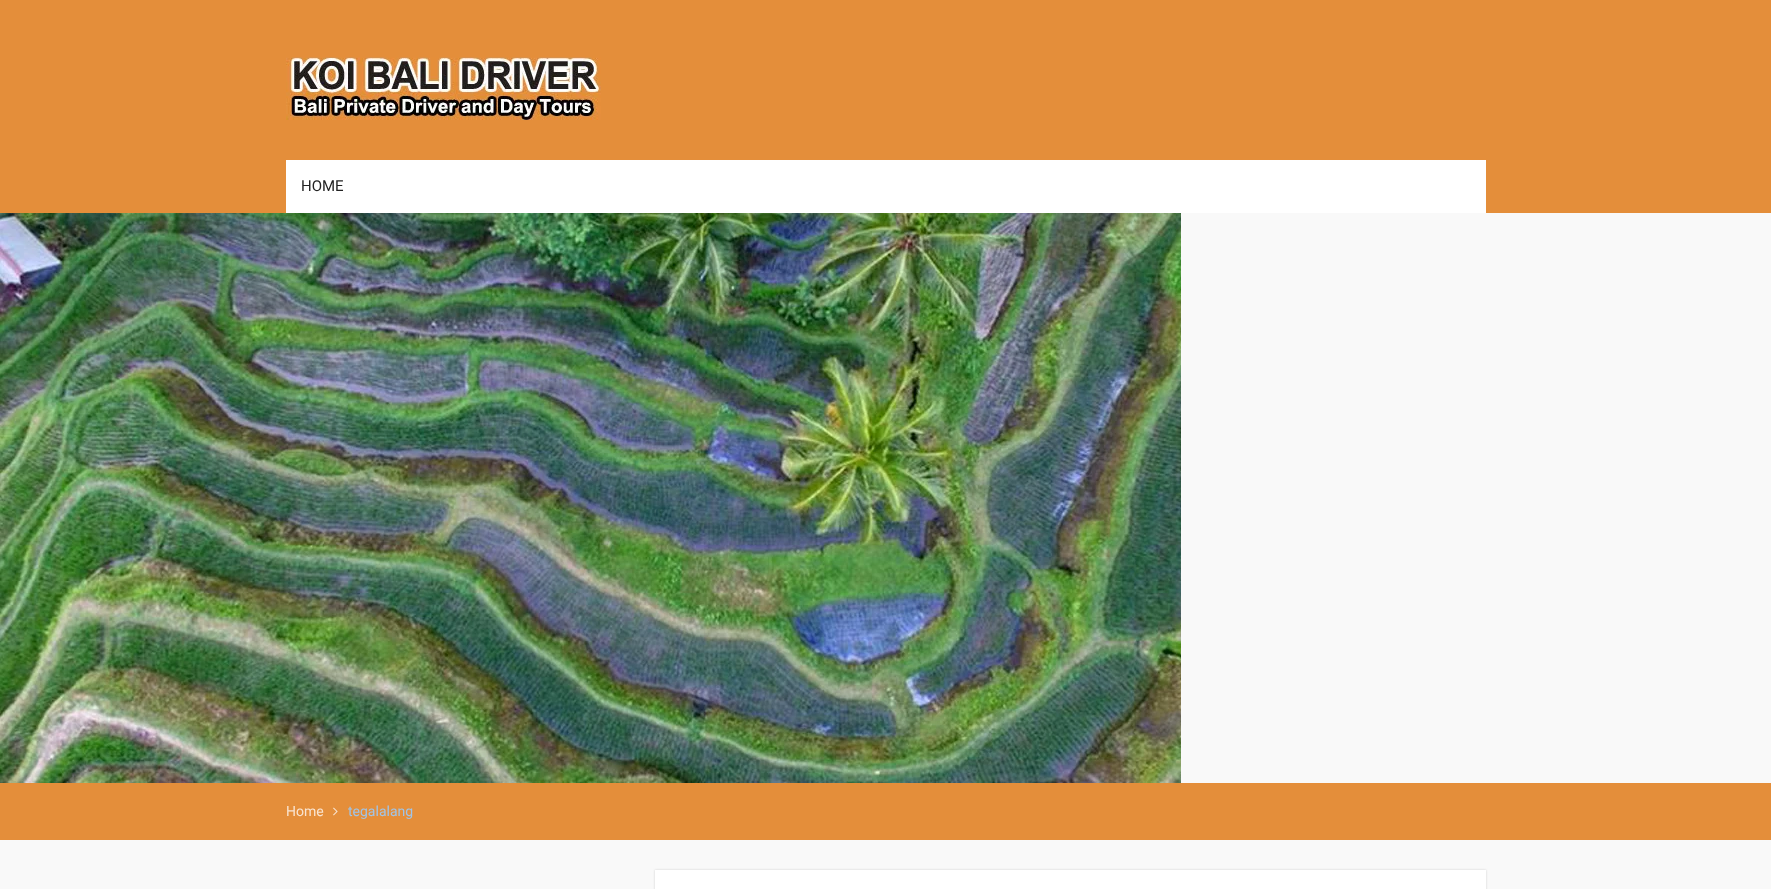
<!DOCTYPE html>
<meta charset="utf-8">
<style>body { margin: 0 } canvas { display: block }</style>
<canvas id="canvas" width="1771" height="889"></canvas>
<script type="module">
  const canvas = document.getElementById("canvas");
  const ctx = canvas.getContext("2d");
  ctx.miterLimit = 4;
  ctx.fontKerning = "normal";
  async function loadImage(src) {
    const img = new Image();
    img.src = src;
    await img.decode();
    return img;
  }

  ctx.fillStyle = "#f9f9f9";
  ctx.fillRect(0, 0, 1771, 889);
  ctx.fillStyle = "#e48e3a";
  ctx.fillRect(0, 0, 1771, 213);
  ctx.drawImage(await loadImage("img1.png"), 286, 57, 315, 63);
  ctx.fillStyle = "#ffffff";
  ctx.fillRect(286, 160, 1200, 53);
  ctx.font = "15px Roboto";
  ctx.fillStyle = "#222222";
  ctx.fillText("HOME", 301, 191);
  ctx.drawImage(await loadImage("img2.png"), 0, 213, 1181, 570);
  ctx.fillStyle = "#e48e3a";
  ctx.fillRect(0, 783, 1771, 57);
  ctx.font = "14px Roboto";
  ctx.fillStyle = "#f9e4d0";
  ctx.fillText("Home", 286, 816);
  ctx.drawImage(await loadImage("img3.png"), 333, 807, 5, 9);
  ctx.fillStyle = "#a0c5e8";
  ctx.fillText("tegalalang", 348, 816);
  ctx.fillStyle = "#cfcfcf";
  ctx.filter = "blur(1px)";
  ctx.beginPath();
  ctx.rect(655, 870, 831, 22);
  ctx.fill();
  ctx.filter = "none";
  ctx.fillStyle = "#ffffff";
  ctx.fillRect(655, 870, 831, 19);
</script>
